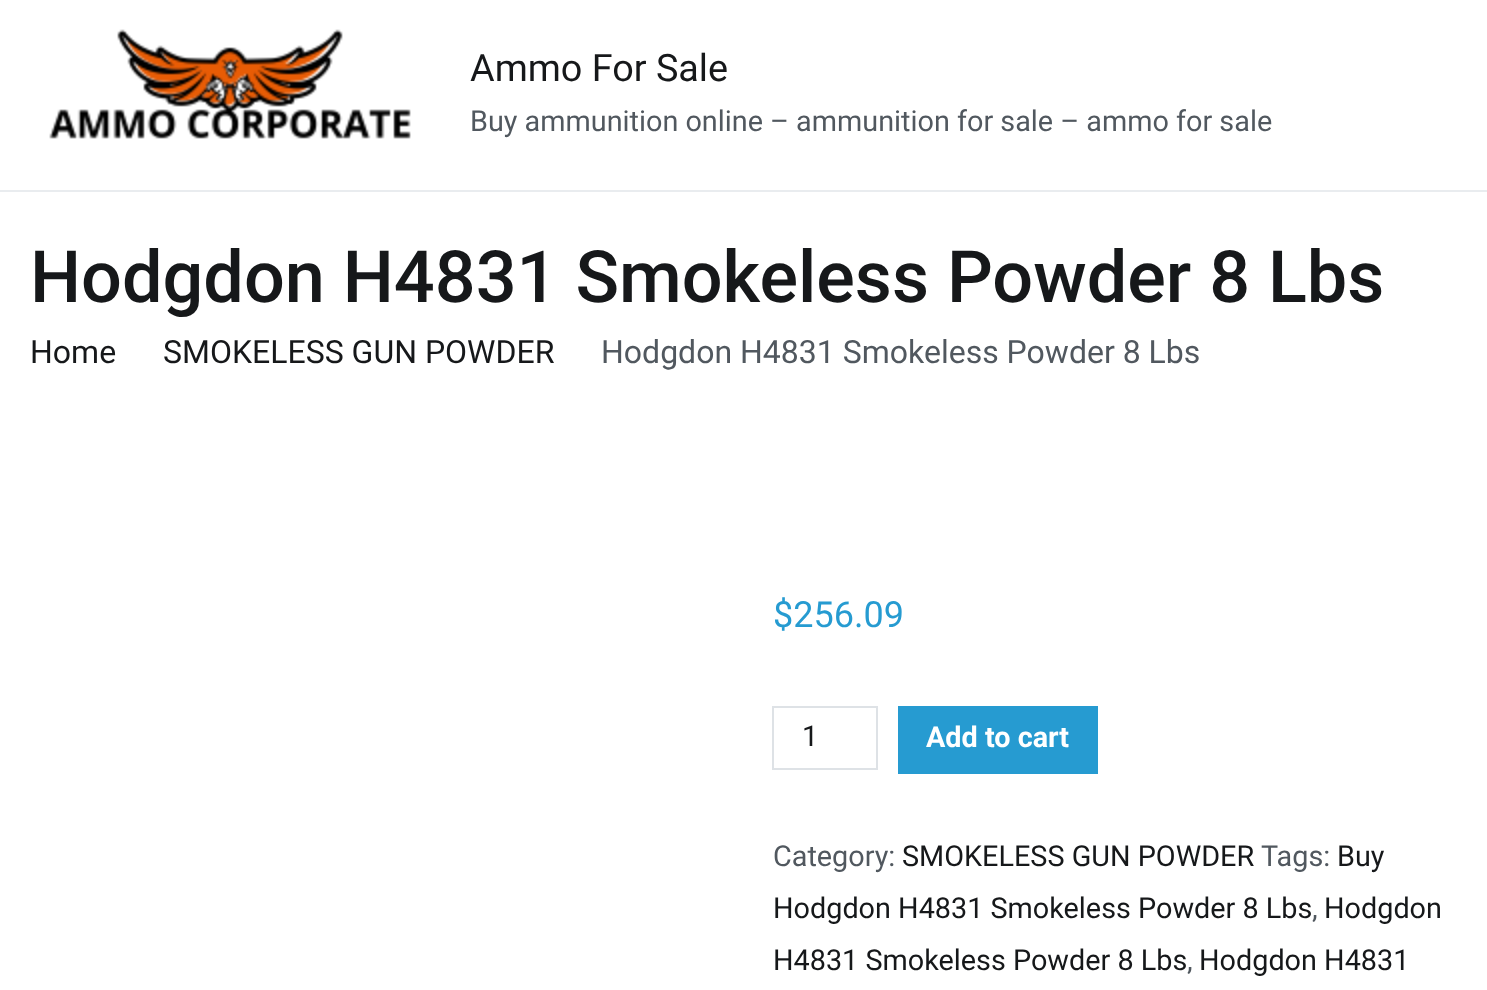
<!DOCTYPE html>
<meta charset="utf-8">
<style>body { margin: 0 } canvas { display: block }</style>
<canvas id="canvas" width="1487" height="990"></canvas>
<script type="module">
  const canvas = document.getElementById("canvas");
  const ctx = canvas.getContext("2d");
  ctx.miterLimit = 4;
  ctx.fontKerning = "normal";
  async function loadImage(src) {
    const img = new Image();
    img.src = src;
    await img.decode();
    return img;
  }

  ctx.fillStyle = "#ffffff";
  ctx.fillRect(0, 0, 1487, 990);
  ctx.fillStyle = "#e9ecef";
  ctx.fillRect(0, 190, 1487, 2);
  ctx.drawImage(await loadImage("img1.png"), 49, 29, 362, 110);
  ctx.font = "37.75px Roboto";
  ctx.fillStyle = "#16181a";
  ctx.fillText("Ammo For Sale", 470, 81);
  ctx.font = "28.8px Roboto";
  ctx.fillStyle = "#51585f";
  ctx.fillText("Buy ammunition online – ammunition for sale – ammo for sale", 470, 131);
  ctx.font = "500 72px Roboto";
  ctx.fillStyle = "#16181a";
  ctx.fillText("Hodgdon H4831 Smokeless Powder 8 Lbs", 30, 302);
  ctx.font = "32px Roboto";
  ctx.fillText("Home", 30, 363);
  ctx.fillText("SMOKELESS GUN POWDER", 163, 363);
  ctx.fillStyle = "#51585f";
  ctx.fillText("Hodgdon H4831 Smokeless Powder 8 Lbs", 601, 363);
  ctx.font = "36px Roboto";
  ctx.fillStyle = "#269bd1";
  ctx.fillText("$256.09", 773, 627);
  ctx.strokeStyle = "#dee2e6";
  ctx.lineWidth = 2;
  ctx.strokeRect(773, 707, 104, 62);
  ctx.font = "28.8px Roboto";
  ctx.fillStyle = "#16181a";
  ctx.fillText("1", 802, 746);
  ctx.fillStyle = "#269bd1";
  ctx.fillRect(898, 706, 200, 68);
  ctx.font = "bold 28.8px Roboto";
  ctx.fillStyle = "#ffffff";
  ctx.fillText("Add to cart", 926, 747);
  ctx.font = "28.8px Roboto";
  ctx.fillStyle = "#51585f";
  ctx.fillText("Category:", 773, 866);
  ctx.fillStyle = "#16181a";
  ctx.fillText("SMOKELESS GUN POWDER", 902, 866);
  ctx.fillStyle = "#51585f";
  ctx.fillText("Tags:", 1261, 866);
  ctx.fillStyle = "#16181a";
  ctx.fillText("Buy", 1337, 866);
  ctx.fillText("Hodgdon H4831 Smokeless Powder 8 Lbs", 773, 918);
  ctx.fillStyle = "#51585f";
  ctx.fillText(",", 1312, 918);
  ctx.fillStyle = "#16181a";
  ctx.fillText("Hodgdon", 1324, 918);
  ctx.fillText("H4831 Smokeless Powder 8 Lbs", 773, 970);
  ctx.fillStyle = "#51585f";
  ctx.fillText(",", 1187, 970);
  ctx.fillStyle = "#16181a";
  ctx.fillText("Hodgdon H4831", 1199, 970);
</script>
